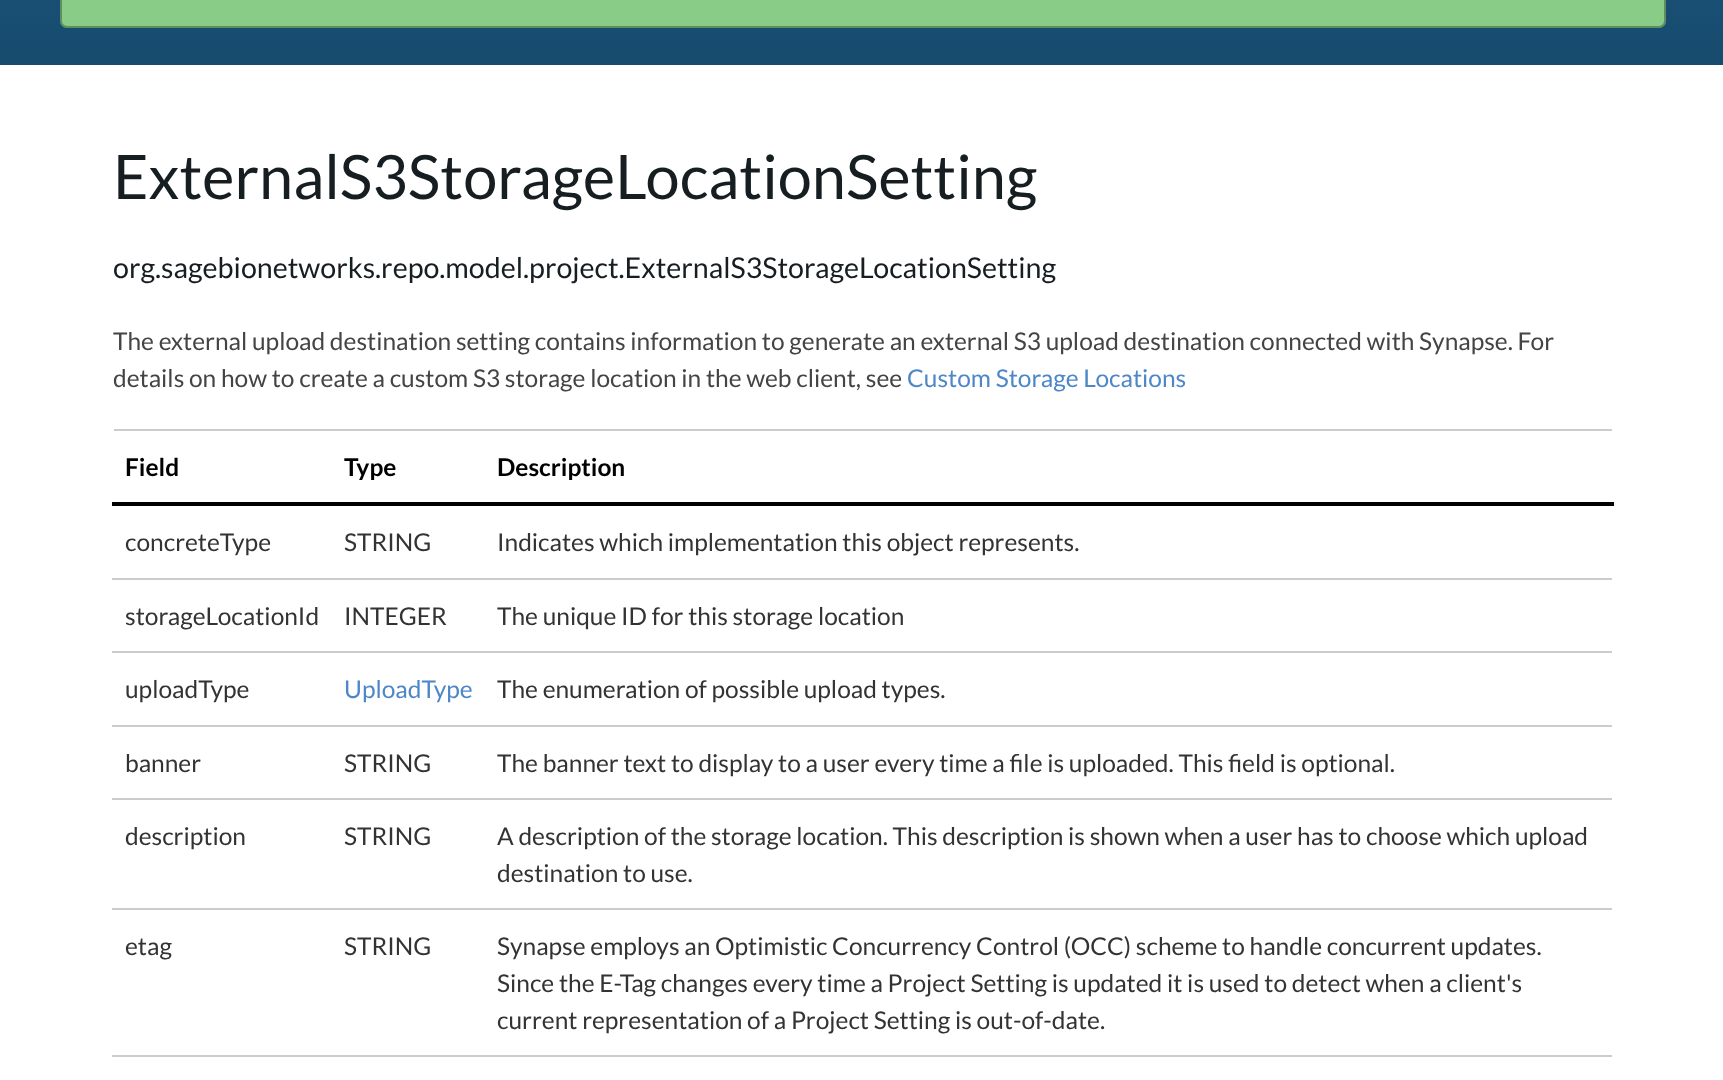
<!DOCTYPE html>
<meta charset="utf-8">
<style>body { margin: 0 } canvas { display: block }</style>
<canvas id="canvas" width="1723" height="1080"></canvas>
<script type="module">
  const canvas = document.getElementById("canvas");
  const ctx = canvas.getContext("2d");
  ctx.miterLimit = 4;
  ctx.fontKerning = "normal";
  let gradient;

  ctx.fillStyle = "#ffffff";
  ctx.fillRect(0, 0, 1723, 1080);
  gradient = ctx.createLinearGradient(862, -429, 862, 65);
  gradient.addColorStop(0, "#2b688f");
  gradient.addColorStop(1, "#164b6e");
  ctx.fillStyle = gradient;
  ctx.fillRect(0, 0, 1723, 65);
  ctx.fillStyle = "#88cc88";
  ctx.beginPath();
  ctx.roundRect(60, -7, 1606, 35, 7);
  ctx.fill();
  ctx.beginPath();
  ctx.roundRect(61, -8, 1604, 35, 6);
  ctx.strokeStyle = "rgba(0, 0, 0, 0.3)";
  ctx.lineWidth = 2;
  ctx.stroke();
  ctx.font = "61.25px Lato";
  ctx.fillStyle = "#161e21";
  ctx.fillText("ExternalS3StorageLocationSetting", 113, 199);
  ctx.font = "28.6px Lato";
  ctx.fillText("org.sagebionetworks.repo.model.project.ExternalS3StorageLocationSetting", 113, 278);
  ctx.font = "24.5px Lato";
  ctx.fillStyle = "#444444";
  ctx.fillText("The external upload destination setting contains information to generate an external S3 upload destination connected with Synapse. For", 113, 350);
  ctx.fillText("details on how to create a custom S3 storage location in the web client, see", 113, 387);
  ctx.fillStyle = "#4d87c7";
  ctx.fillText("Custom Storage Locations", 907, 387);
  ctx.fillStyle = "#cccccc";
  ctx.fillRect(114, 429, 1498, 2);
  ctx.font = "bold 24.5px Lato";
  ctx.fillStyle = "#000000";
  ctx.fillText("Field", 125, 476);
  ctx.fillText("Type", 344, 476);
  ctx.fillRect(112, 502, 1502, 4);
  ctx.fillText("Description", 497, 476);
  ctx.font = "24.5px Lato";
  ctx.fillStyle = "#333333";
  ctx.fillText("concreteType", 125, 551);
  ctx.fillText("STRING", 344, 551);
  ctx.fillText("Indicates which implementation this object represents.", 497, 551);
  ctx.fillText("storageLocationId", 125, 625);
  ctx.fillText("INTEGER", 344, 625);
  ctx.fillStyle = "#cccccc";
  ctx.fillRect(112, 578, 1500, 2);
  ctx.fillStyle = "#333333";
  ctx.fillText("The unique ID for this storage location", 497, 625);
  ctx.fillText("uploadType", 125, 698);
  ctx.fillStyle = "#4d87c7";
  ctx.fillText("UploadType", 344, 698);
  ctx.fillStyle = "#cccccc";
  ctx.fillRect(112, 651, 1500, 2);
  ctx.fillStyle = "#333333";
  ctx.fillText("The enumeration of possible upload types.", 497, 698);
  ctx.fillText("banner", 125, 772);
  ctx.fillText("STRING", 344, 772);
  ctx.fillStyle = "#cccccc";
  ctx.fillRect(112, 725, 1500, 2);
  ctx.fillStyle = "#333333";
  ctx.fillText("The banner text to display to a user every time a file is uploaded. This field is optional.", 497, 772);
  ctx.fillText("description", 125, 845);
  ctx.fillText("STRING", 344, 845);
  ctx.fillStyle = "#cccccc";
  ctx.fillRect(112, 798, 1500, 2);
  ctx.fillStyle = "#333333";
  ctx.fillText("A description of the storage location. This description is shown when a user has to choose which upload", 497, 845);
  ctx.fillText("destination to use.", 497, 882);
  ctx.fillText("etag", 125, 955);
  ctx.fillText("STRING", 344, 955);
  ctx.fillStyle = "#cccccc";
  ctx.fillRect(112, 908, 1500, 2);
  ctx.fillStyle = "#333333";
  ctx.fillText("Synapse employs an Optimistic Concurrency Control (OCC) scheme to handle concurrent updates.", 497, 955);
  ctx.fillText("Since the E-Tag changes every time a Project Setting is updated it is used to detect when a client's", 497, 992);
  ctx.fillText("current representation of a Project Setting is out-of-date.", 497, 1029);
  ctx.fillStyle = "#cccccc";
  ctx.fillRect(112, 1055, 1500, 2);
</script>
